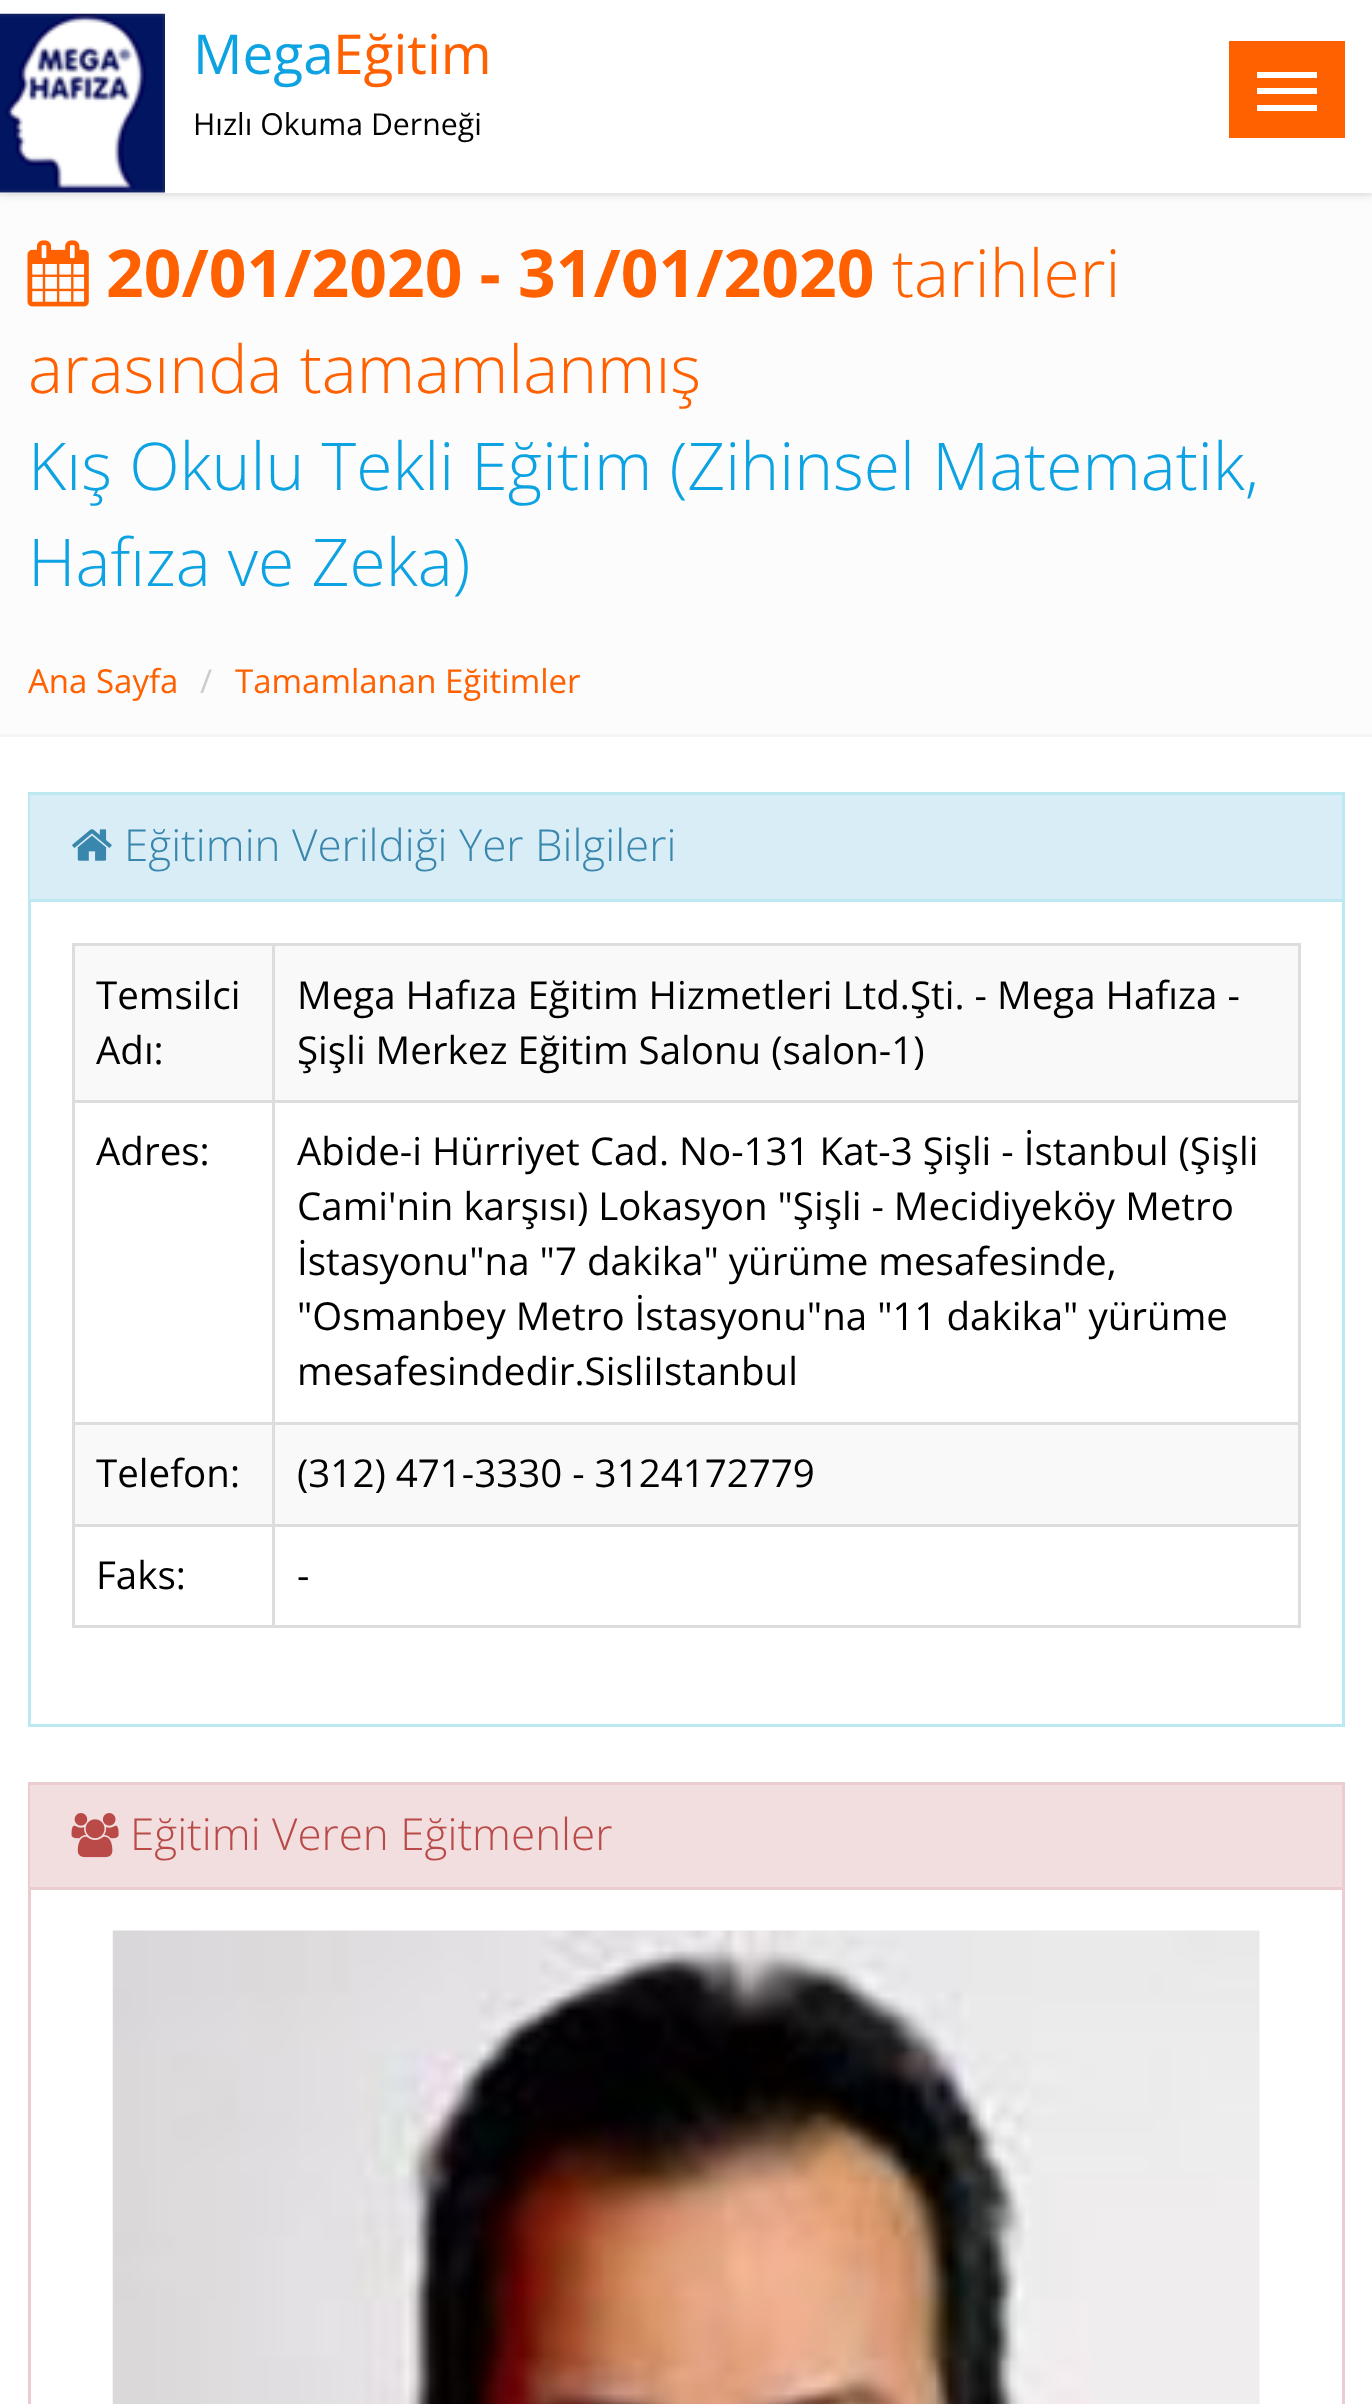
<!DOCTYPE html>
<meta charset="utf-8">
<style>body { margin: 0 } canvas { display: block }</style>
<canvas id="canvas" width="1372" height="2404"></canvas>
<script type="module">
  const canvas = document.getElementById("canvas");
  const ctx = canvas.getContext("2d");
  ctx.miterLimit = 4;
  ctx.fontKerning = "normal";
  async function loadImage(src) {
    const img = new Image();
    img.src = src;
    await img.decode();
    return img;
  }

  ctx.fillStyle = "#ffffff";
  ctx.fillRect(0, 0, 1372, 2404);
  ctx.fillStyle = "#fcfcfc";
  ctx.fillRect(0, 196, 1372, 538);
  ctx.fillStyle = "#f5f5f5";
  ctx.fillRect(0, 193, 1372, 3);
  ctx.fillStyle = "#dddddd";
  ctx.filter = "blur(4px)";
  ctx.beginPath();
  ctx.rect(0, 3, 1372, 192);
  ctx.fill();
  ctx.filter = "none";
  ctx.fillStyle = "#ffffff";
  ctx.fillRect(0, 0, 1372, 193);
  ctx.drawImage(await loadImage("img1.png"), 0, 13, 165, 180);
  ctx.font = "55px Open Sans";
  ctx.fillStyle = "#0da3e2";
  ctx.fillText("Mega", 193, 74);
  ctx.fillStyle = "#ff6000";
  ctx.fillText("Eğitim", 333, 74);
  ctx.font = "30.25px Open Sans";
  ctx.fillStyle = "#000000";
  ctx.fillText("Hızlı Okuma Derneği", 193, 135);
  ctx.fillStyle = "#ff6000";
  ctx.fillRect(1229, 41, 116, 97);
  ctx.fillStyle = "#ffffff";
  ctx.fillRect(1257, 72, 60, 6);
  ctx.fillRect(1257, 88, 60, 6);
  ctx.fillRect(1257, 105, 60, 6);
  ctx.fillStyle = "#f5f5f5";
  ctx.fillRect(0, 734, 1372, 3);
  ctx.drawImage(await loadImage("img2.png"), 27, 240, 62, 67);
  ctx.font = "bold 66px Open Sans";
  ctx.fillStyle = "#ff6000";
  ctx.fillText("20/01/2020 - 31/01/2020", 106, 297);
  ctx.font = "300 66px Open Sans";
  ctx.fillText("tarihleri", 892, 297);
  ctx.fillText("arasında tamamlanmış", 28, 393);
  ctx.fillStyle = "#0da3e2";
  ctx.fillText("Kış Okulu Tekli Eğitim (Zihinsel Matematik,", 28, 490);
  ctx.fillText("Hafıza ve Zeka)", 28, 586);
  ctx.font = "33px Open Sans";
  ctx.fillStyle = "#ff6000";
  ctx.fillText("Ana Sayfa", 28, 693);
  ctx.fillStyle = "#cccccc";
  ctx.fillText("/", 200, 693);
  ctx.fillStyle = "#ff6000";
  ctx.fillText("Tamamlanan Eğitimler", 235, 693);
  ctx.strokeStyle = "#bce8f1";
  ctx.lineWidth = 3;
  ctx.strokeRect(29.5, 793.5, 1314, 932);
  ctx.fillStyle = "#d9edf7";
  ctx.fillRect(30, 795, 1312, 104);
  ctx.fillStyle = "#bce8f1";
  ctx.fillRect(30, 899, 1312, 3);
  ctx.drawImage(await loadImage("img3.png"), 72, 829, 40, 32);
  ctx.font = "300 44px Open Sans";
  ctx.fillStyle = "#3a87ad";
  ctx.fillText("Eğitimin Verildiği Yer Bilgileri", 124, 861);
  ctx.fillStyle = "#dddddd";
  ctx.fillRect(72, 943, 1229, 3);
  ctx.fillRect(1298, 943, 3, 685);
  ctx.fillRect(72, 1625, 1229, 3);
  ctx.fillRect(72, 943, 3, 685);
  ctx.fillStyle = "#f9f9f9";
  ctx.fillRect(75, 946, 197, 154);
  ctx.font = "38.5px Open Sans";
  ctx.fillStyle = "#000000";
  ctx.fillText("Temsilci", 96, 1009);
  ctx.fillText("Adı:", 96, 1064);
  ctx.fillStyle = "#f9f9f9";
  ctx.fillRect(275, 946, 1023, 154);
  ctx.fillStyle = "#dddddd";
  ctx.fillRect(272, 1100, 1029, 3);
  ctx.fillRect(272, 1422, 1029, 3);
  ctx.fillRect(272, 1524, 1029, 3);
  ctx.fillRect(272, 1524, 3, 104);
  ctx.fillRect(72, 1524, 203, 3);
  ctx.fillRect(272, 1422, 3, 104);
  ctx.fillRect(72, 1422, 203, 3);
  ctx.fillRect(272, 1100, 3, 325);
  ctx.fillRect(72, 1100, 203, 3);
  ctx.fillRect(272, 943, 3, 160);
  ctx.fillStyle = "#000000";
  ctx.fillText("Mega Hafıza Eğitim Hizmetleri Ltd.Şti. - Mega Hafıza -", 297, 1009);
  ctx.fillText("Şişli Merkez Eğitim Salonu (salon-1)", 297, 1064);
  ctx.fillText("Adres:", 96, 1165);
  ctx.fillText("Abide-i Hürriyet Cad. No-131 Kat-3 Şişli - İstanbul (Şişli", 297, 1165);
  ctx.fillText("Cami'nin karşısı) Lokasyon \"Şişli - Mecidiyeköy Metro", 297, 1220);
  ctx.fillText("İstasyonu\"na \"7 dakika\" yürüme mesafesinde,", 297, 1275);
  ctx.fillText("\"Osmanbey Metro İstasyonu\"na \"11 dakika\" yürüme", 297, 1330);
  ctx.fillText("mesafesindedir.SisliIstanbul", 297, 1385);
  ctx.fillStyle = "#f9f9f9";
  ctx.fillRect(75, 1425, 197, 99);
  ctx.fillStyle = "#000000";
  ctx.fillText("Telefon:", 96, 1487);
  ctx.fillStyle = "#f9f9f9";
  ctx.fillRect(275, 1425, 1023, 99);
  ctx.fillStyle = "#000000";
  ctx.fillText("(312) 471-3330 - 3124172779", 297, 1487);
  ctx.fillText("Faks:", 96, 1589);
  ctx.fillText("-", 297, 1589);
  ctx.strokeStyle = "#ebccd1";
  ctx.strokeRect(29.5, 1783.5, 1314, 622);
  ctx.fillStyle = "#f2dede";
  ctx.fillRect(30, 1785, 1312, 102);
  ctx.fillStyle = "#ebccd1";
  ctx.fillRect(30, 1887, 1312, 3);
  ctx.drawImage(await loadImage("img4.png"), 71, 1813, 48, 45);
  ctx.font = "300 44px Open Sans";
  ctx.fillStyle = "#b94a48";
  ctx.fillText("Eğitimi Veren Eğitmenler", 130, 1850);
  ctx.drawImage(await loadImage("img5.png"), 112, 1930, 1148, 474);
</script>
